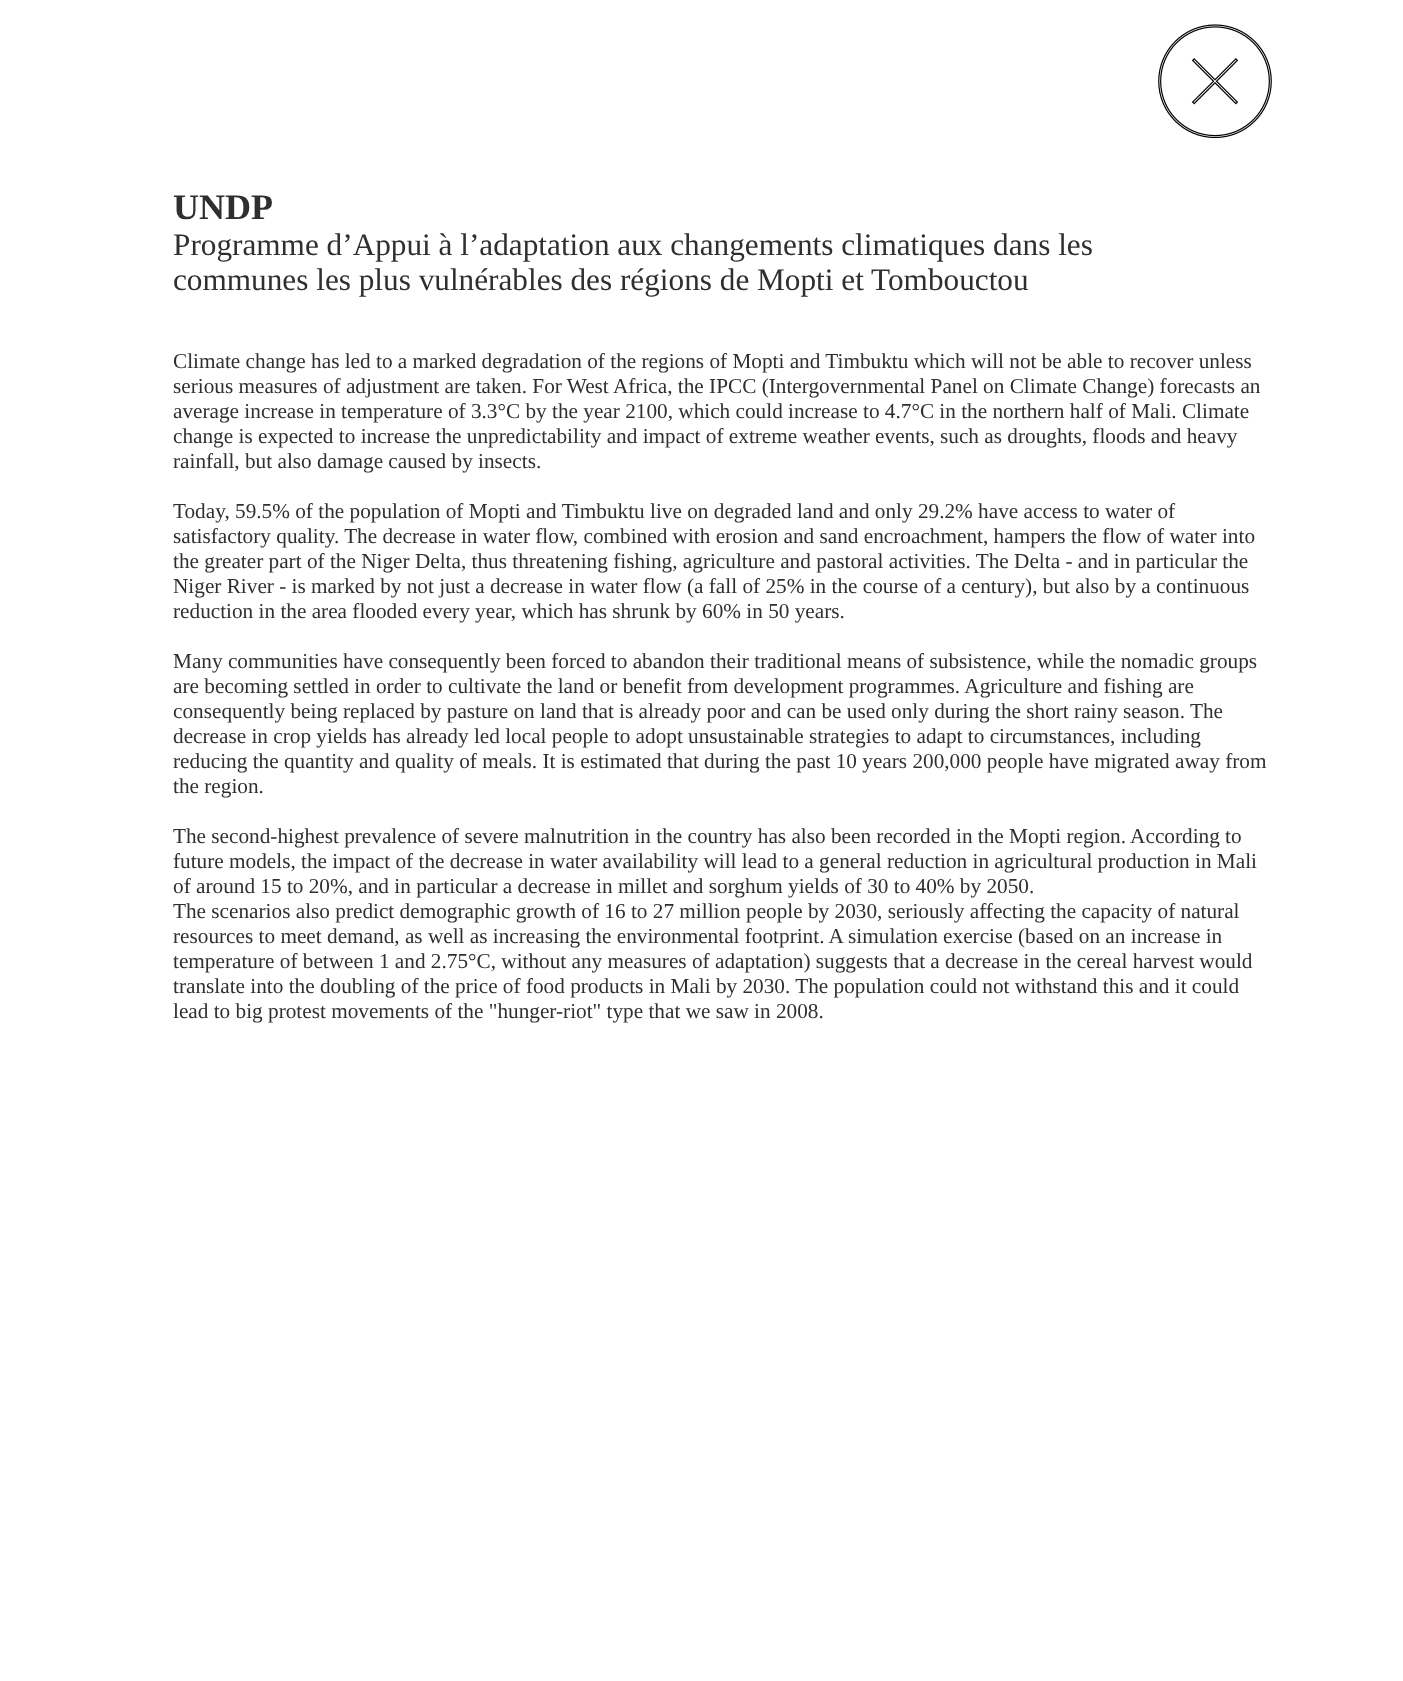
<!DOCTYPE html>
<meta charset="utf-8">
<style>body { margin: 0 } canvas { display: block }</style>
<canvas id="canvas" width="1403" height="1681"></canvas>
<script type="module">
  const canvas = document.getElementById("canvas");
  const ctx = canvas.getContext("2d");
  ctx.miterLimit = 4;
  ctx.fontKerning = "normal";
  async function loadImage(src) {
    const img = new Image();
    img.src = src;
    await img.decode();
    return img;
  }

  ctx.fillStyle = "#ffffff";
  ctx.fillRect(0, 0, 1403, 1681);
  ctx.drawImage(await loadImage("img1.png"), 1158, 24, 114, 115);
  ctx.font = "bold 36px Liberation Serif";
  ctx.fillStyle = "#2f2f30";
  ctx.fillText("UNDP", 173, 219);
  ctx.font = "31.25px Liberation Serif";
  ctx.fillText("Programme d’Appui à l’adaptation aux changements climatiques dans les", 173, 255);
  ctx.fillText("communes les plus vulnérables des régions de Mopti et Tombouctou", 173, 290);
  ctx.font = "21.25px Liberation Serif";
  ctx.fillText("Climate change has led to a marked degradation of the regions of Mopti and Timbuktu which will not be able to recover unless", 173, 368);
  ctx.fillText("serious measures of adjustment are taken. For West Africa, the IPCC (Intergovernmental Panel on Climate Change) forecasts an", 173, 393);
  ctx.fillText("average increase in temperature of 3.3°C by the year 2100, which could increase to 4.7°C in the northern half of Mali. Climate", 173, 418);
  ctx.fillText("change is expected to increase the unpredictability and impact of extreme weather events, such as droughts, floods and heavy", 173, 443);
  ctx.fillText("rainfall, but also damage caused by insects.", 173, 468);
  ctx.fillText("Today, 59.5% of the population of Mopti and Timbuktu live on degraded land and only 29.2% have access to water of", 173, 518);
  ctx.fillText("satisfactory quality. The decrease in water flow, combined with erosion and sand encroachment, hampers the flow of water into", 173, 543);
  ctx.fillText("the greater part of the Niger Delta, thus threatening fishing, agriculture and pastoral activities. The Delta - and in particular the", 173, 568);
  ctx.fillText("Niger River - is marked by not just a decrease in water flow (a fall of 25% in the course of a century), but also by a continuous", 173, 593);
  ctx.fillText("reduction in the area flooded every year, which has shrunk by 60% in 50 years.", 173, 618);
  ctx.fillText("Many communities have consequently been forced to abandon their traditional means of subsistence, while the nomadic groups", 173, 668);
  ctx.fillText("are becoming settled in order to cultivate the land or benefit from development programmes. Agriculture and fishing are", 173, 693);
  ctx.fillText("consequently being replaced by pasture on land that is already poor and can be used only during the short rainy season. The", 173, 718);
  ctx.fillText("decrease in crop yields has already led local people to adopt unsustainable strategies to adapt to circumstances, including", 173, 743);
  ctx.fillText("reducing the quantity and quality of meals. It is estimated that during the past 10 years 200,000 people have migrated away from", 173, 768);
  ctx.fillText("the region.", 173, 793);
  ctx.fillText("The second-highest prevalence of severe malnutrition in the country has also been recorded in the Mopti region. According to", 173, 843);
  ctx.fillText("future models, the impact of the decrease in water availability will lead to a general reduction in agricultural production in Mali", 173, 868);
  ctx.fillText("of around 15 to 20%, and in particular a decrease in millet and sorghum yields of 30 to 40% by 2050.", 173, 893);
  ctx.fillText("The scenarios also predict demographic growth of 16 to 27 million people by 2030, seriously affecting the capacity of natural", 173, 918);
  ctx.fillText("resources to meet demand, as well as increasing the environmental footprint. A simulation exercise (based on an increase in", 173, 943);
  ctx.fillText("temperature of between 1 and 2.75°C, without any measures of adaptation) suggests that a decrease in the cereal harvest would", 173, 968);
  ctx.fillText("translate into the doubling of the price of food products in Mali by 2030. The population could not withstand this and it could", 173, 993);
  ctx.fillText("lead to big protest movements of the \"hunger-riot\" type that we saw in 2008.", 173, 1018);
</script>
